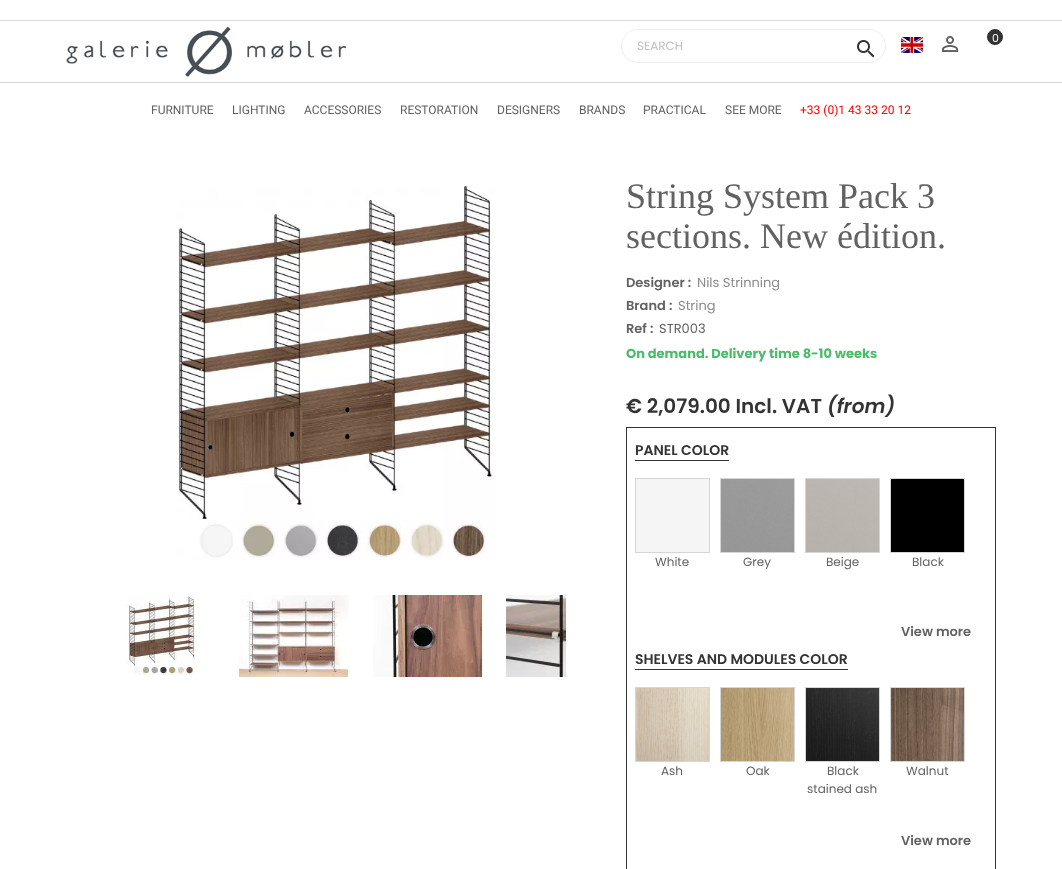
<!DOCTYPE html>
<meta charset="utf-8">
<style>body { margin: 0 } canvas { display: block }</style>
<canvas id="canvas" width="1062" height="869"></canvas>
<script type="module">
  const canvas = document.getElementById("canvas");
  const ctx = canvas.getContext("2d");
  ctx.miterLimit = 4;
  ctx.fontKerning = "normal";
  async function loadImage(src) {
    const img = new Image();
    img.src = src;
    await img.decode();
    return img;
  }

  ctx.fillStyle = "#ffffff";
  ctx.fillRect(0, 0, 1062, 869);
  ctx.fillStyle = "#d9d9d9";
  ctx.fillRect(0, 20, 1062, 1);
  ctx.drawImage(await loadImage("img1.png"), 66, 26, 280, 51);
  ctx.beginPath();
  ctx.roundRect(621.5, 29.5, 264, 33, 16.5);
  ctx.strokeStyle = "#eeeeee";
  ctx.stroke();
  ctx.font = "12px Poppins";
  ctx.fillStyle = "#c0c0c0";
  ctx.fillText("SEARCH", 637, 50);
  ctx.drawImage(await loadImage("img2.png"), 857, 40, 18, 18);
  ctx.drawImage(await loadImage("img3.png"), 901, 37, 22, 16);
  ctx.drawImage(await loadImage("img4.png"), 942, 36, 16, 16);
  ctx.fillStyle = "#333333";
  ctx.beginPath();
  ctx.arc(995, 37, 7.5, 0, Math.PI * 2);
  ctx.fill();
  ctx.strokeStyle = "#333333";
  ctx.stroke();
  ctx.font = "11px Poppins";
  ctx.fillStyle = "#ffffff";
  ctx.fillText("0", 992, 42);
  ctx.fillStyle = "#d9d9d9";
  ctx.fillRect(0, 82, 1062, 1);
  ctx.font = "12px Roboto";
  ctx.fillStyle = "#616161";
  ctx.fillText("FURNITURE", 151, 114);
  ctx.fillText("LIGHTING", 232, 114);
  ctx.fillText("ACCESSORIES", 304, 114);
  ctx.fillText("RESTORATION", 400, 114);
  ctx.fillText("DESIGNERS", 497, 114);
  ctx.fillText("BRANDS", 579, 114);
  ctx.fillText("PRACTICAL", 643, 114);
  ctx.fillText("SEE MORE", 725, 114);
  ctx.fillStyle = "#ff0000";
  ctx.fillText("+33 (0)1 43 33 20 12", 800, 114);
  ctx.drawImage(await loadImage("img5.png"), 178, 186, 318, 374);
  ctx.drawImage(await loadImage("img6.png"), 126, 595, 70, 80);
  ctx.drawImage(await loadImage("img7.png"), 239, 595, 110, 82);
  ctx.drawImage(await loadImage("img8.png"), 373, 595, 110, 82);
  ctx.drawImage(await loadImage("img9.png"), 506, 595, 60, 82);
  ctx.font = "36px Liberation Serif";
  ctx.fillStyle = "#616161";
  ctx.fillText("String System Pack 3", 626, 208);
  ctx.fillText("sections. New édition.", 626, 248);
  ctx.font = "600 13px Poppins";
  ctx.fillText("Designer :", 626, 287);
  ctx.font = "13px Poppins";
  ctx.fillStyle = "#8a8b8a";
  ctx.fillText("Nils Strinning", 697, 287);
  ctx.font = "600 13px Poppins";
  ctx.fillStyle = "#616161";
  ctx.fillText("Brand :", 626, 310);
  ctx.font = "13px Poppins";
  ctx.fillStyle = "#8a8b8a";
  ctx.fillText("String", 678, 310);
  ctx.font = "600 13px Poppins";
  ctx.fillStyle = "#616161";
  ctx.fillText("Ref :", 626, 333);
  ctx.font = "13px Poppins";
  ctx.fillText("STR003", 659, 333);
  ctx.font = "bold 13px Poppins";
  ctx.fillStyle = "#4cbb6c";
  ctx.fillText("On demand. Delivery time 8-10 weeks", 626, 358);
  ctx.font = "600 20px Poppins";
  ctx.fillStyle = "#333333";
  ctx.fillText("€ 2,079.00 Incl. VAT", 626, 413);
  ctx.font = "italic 600 20px Poppins";
  ctx.fillText("(from)", 827, 413);
  ctx.strokeRect(626.5, 427.5, 369, 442);
  ctx.font = "600 14px Poppins";
  ctx.fillText("PANEL COLOR", 635, 455);
  ctx.fillRect(635, 460, 94, 1);
  ctx.strokeStyle = "#d6d4d4";
  ctx.strokeRect(635.5, 478.5, 74, 74);
  ctx.fillStyle = "#f5f5f5";
  ctx.fillRect(636, 479, 73, 73);
  ctx.font = "12px Poppins";
  ctx.fillStyle = "#616161";
  ctx.fillText("White", 655, 566);
  ctx.strokeRect(720.5, 478.5, 74, 74);
  ctx.drawImage(await loadImage("img10.png"), 721, 479, 73, 73);
  ctx.fillText("Grey", 743, 566);
  ctx.strokeRect(805.5, 478.5, 74, 74);
  ctx.drawImage(await loadImage("img11.png"), 806, 479, 73, 73);
  ctx.fillText("Beige", 826, 566);
  ctx.strokeRect(890.5, 478.5, 74, 74);
  ctx.fillStyle = "#000000";
  ctx.fillRect(891, 479, 73, 73);
  ctx.fillStyle = "#616161";
  ctx.fillText("Black", 912, 566);
  ctx.font = "600 13px Poppins";
  ctx.fillText("View more", 901, 636);
  ctx.font = "600 14px Poppins";
  ctx.fillStyle = "#333333";
  ctx.fillText("SHELVES AND MODULES COLOR", 635, 664);
  ctx.fillRect(635, 669, 213, 1);
  ctx.strokeRect(635.5, 687.5, 74, 74);
  ctx.drawImage(await loadImage("img12.png"), 636, 688, 73, 73);
  ctx.font = "12px Poppins";
  ctx.fillStyle = "#616161";
  ctx.fillText("Ash", 661, 775);
  ctx.strokeRect(720.5, 687.5, 74, 74);
  ctx.drawImage(await loadImage("img13.png"), 721, 688, 73, 73);
  ctx.fillText("Oak", 746, 775);
  ctx.strokeRect(805.5, 687.5, 74, 74);
  ctx.drawImage(await loadImage("img14.png"), 806, 688, 73, 73);
  ctx.fillText("Black", 827, 775);
  ctx.fillText("stained ash", 807, 793);
  ctx.strokeRect(890.5, 687.5, 74, 74);
  ctx.drawImage(await loadImage("img15.png"), 891, 688, 73, 73);
  ctx.fillText("Walnut", 906, 775);
  ctx.font = "600 13px Poppins";
  ctx.fillText("View more", 901, 845);
</script>
